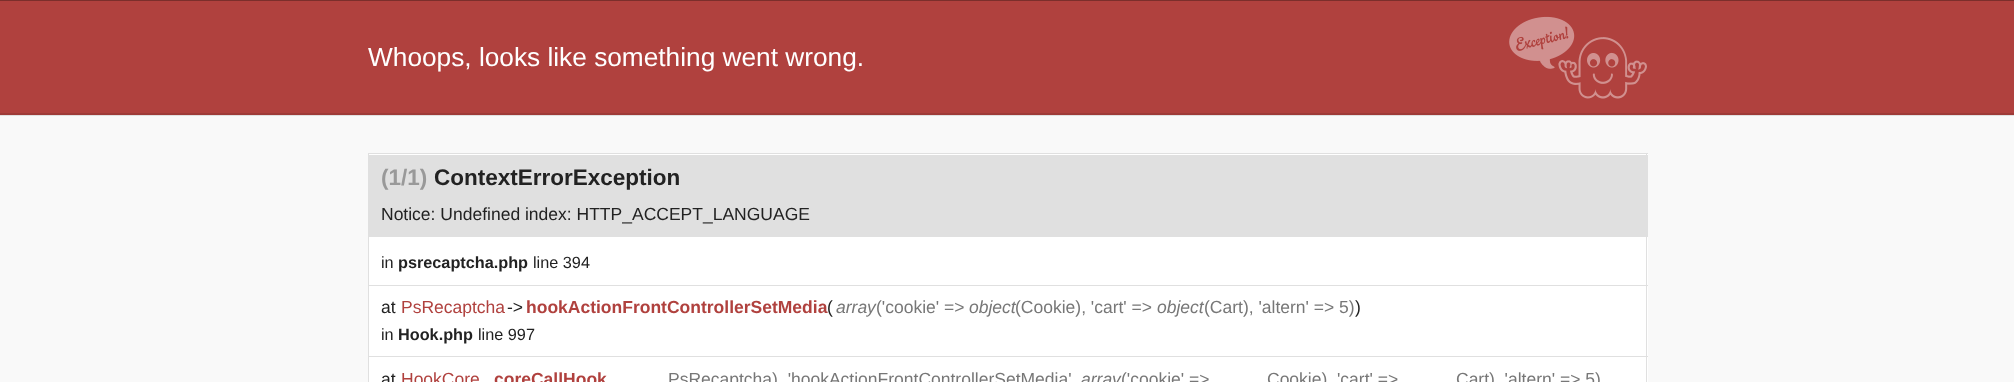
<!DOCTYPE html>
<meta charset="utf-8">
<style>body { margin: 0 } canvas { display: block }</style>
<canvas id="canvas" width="2014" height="382"></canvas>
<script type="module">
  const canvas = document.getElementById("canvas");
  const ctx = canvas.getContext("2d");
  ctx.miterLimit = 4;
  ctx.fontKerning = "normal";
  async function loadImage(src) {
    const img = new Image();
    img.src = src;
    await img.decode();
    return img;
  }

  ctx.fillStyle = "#f9f9f9";
  ctx.fillRect(0, 0, 2014, 382);
  ctx.fillStyle = "#e0e0e0";
  ctx.fillRect(0, 115, 2014, 1);
  ctx.fillStyle = "#b0413e";
  ctx.fillRect(0, 1, 2014, 112);
  ctx.fillStyle = "#9e3b38";
  ctx.fillRect(0, 113, 2014, 2);
  ctx.fillStyle = "#7b2e2b";
  ctx.fillRect(0, 0, 2014, 1);
  ctx.font = "26.25px Liberation Sans";
  ctx.fillStyle = "#ffffff";
  ctx.fillText("Whoops, looks like something went wrong.", 368, 66);
  ctx.drawImage(await loadImage("img1.png"), 1509, 16, 138, 83);
  ctx.fillStyle = "rgba(128, 128, 128, 0.2)";
  ctx.filter = "blur(0.5px)";
  ctx.beginPath();
  ctx.rect(368, 153, 1280, 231);
  ctx.fill();
  ctx.filter = "none";
  ctx.fillStyle = "#ffffff";
  ctx.fillRect(369, 154, 1279, 228);
  ctx.fillStyle = "#e0e0e0";
  ctx.fillRect(368, 153, 1280, 1);
  ctx.fillRect(369, 155, 1279, 81);
  ctx.fillRect(1646, 153, 1, 229);
  ctx.fillRect(368, 153, 1, 229);
  ctx.font = "bold 22.5px Liberation Sans";
  ctx.fillStyle = "#999999";
  ctx.fillText("(1/1)", 381, 185);
  ctx.fillStyle = "#222222";
  ctx.fillText("ContextErrorException", 434, 185);
  ctx.font = "17.5px Liberation Sans";
  ctx.fillText("Notice: Undefined index: HTTP_ACCEPT_LANGUAGE", 381, 220);
  ctx.fillStyle = "#e0e0e0";
  ctx.fillRect(368, 236, 1280, 1);
  ctx.font = "16.25px Liberation Sans";
  ctx.fillStyle = "#222222";
  ctx.fillText("in", 381, 268);
  ctx.font = "bold 16.25px Liberation Sans";
  ctx.fillText("psrecaptcha.php", 398, 268);
  ctx.font = "16.25px Liberation Sans";
  ctx.fillText("line 394", 533, 268);
  ctx.fillStyle = "#e0e0e0";
  ctx.fillRect(368, 285, 1280, 1);
  ctx.font = "17.5px Liberation Sans";
  ctx.fillStyle = "#222222";
  ctx.fillText("at", 381, 313);
  ctx.fillStyle = "#b0413e";
  ctx.fillText("PsRecaptcha", 401, 313);
  ctx.fillStyle = "#222222";
  ctx.fillText("->", 507, 313);
  ctx.font = "bold 17.5px Liberation Sans";
  ctx.fillStyle = "#b0413e";
  ctx.fillText("hookActionFrontControllerSetMedia", 526, 313);
  ctx.font = "17.5px Liberation Sans";
  ctx.fillStyle = "#222222";
  ctx.fillText("(", 827, 313);
  ctx.font = "italic 17.5px Liberation Sans";
  ctx.fillStyle = "#777777";
  ctx.fillText("array", 836, 313);
  ctx.font = "17.5px Liberation Sans";
  ctx.fillText("('cookie' =>", 876, 313);
  ctx.font = "italic 17.5px Liberation Sans";
  ctx.fillText("object", 969, 313);
  ctx.font = "17.5px Liberation Sans";
  ctx.fillText("(Cookie), 'cart' =>", 1015, 313);
  ctx.font = "italic 17.5px Liberation Sans";
  ctx.fillText("object", 1157, 313);
  ctx.font = "17.5px Liberation Sans";
  ctx.fillText("(Cart), 'altern' => 5)", 1204, 313);
  ctx.fillStyle = "#222222";
  ctx.fillText(")", 1355, 313);
  ctx.font = "16.25px Liberation Sans";
  ctx.fillText("in", 381, 340);
  ctx.font = "bold 16.25px Liberation Sans";
  ctx.fillText("Hook.php", 398, 340);
  ctx.font = "16.25px Liberation Sans";
  ctx.fillText("line 997", 478, 340);
  ctx.fillStyle = "#e0e0e0";
  ctx.fillRect(368, 356, 1280, 1);
  ctx.font = "17.5px Liberation Sans";
  ctx.fillStyle = "#222222";
  ctx.fillText("at", 381, 385);
  ctx.fillStyle = "#b0413e";
  ctx.fillText("HookCore", 401, 385);
  ctx.font = "bold 17.5px Liberation Sans";
  ctx.fillText("coreCallHook", 494, 385);
  ctx.font = "17.5px Liberation Sans";
  ctx.fillStyle = "#777777";
  ctx.fillText("PsRecaptcha), 'hookActionFrontControllerSetMedia'", 668, 385);
  ctx.font = "italic 17.5px Liberation Sans";
  ctx.fillText("array", 1081, 385);
  ctx.font = "17.5px Liberation Sans";
  ctx.fillText("('cookie' =>", 1121, 385);
  ctx.fillText("Cookie), 'cart' =>", 1267, 385);
  ctx.fillText("Cart), 'altern' => 5)", 1456, 385);
</script>
